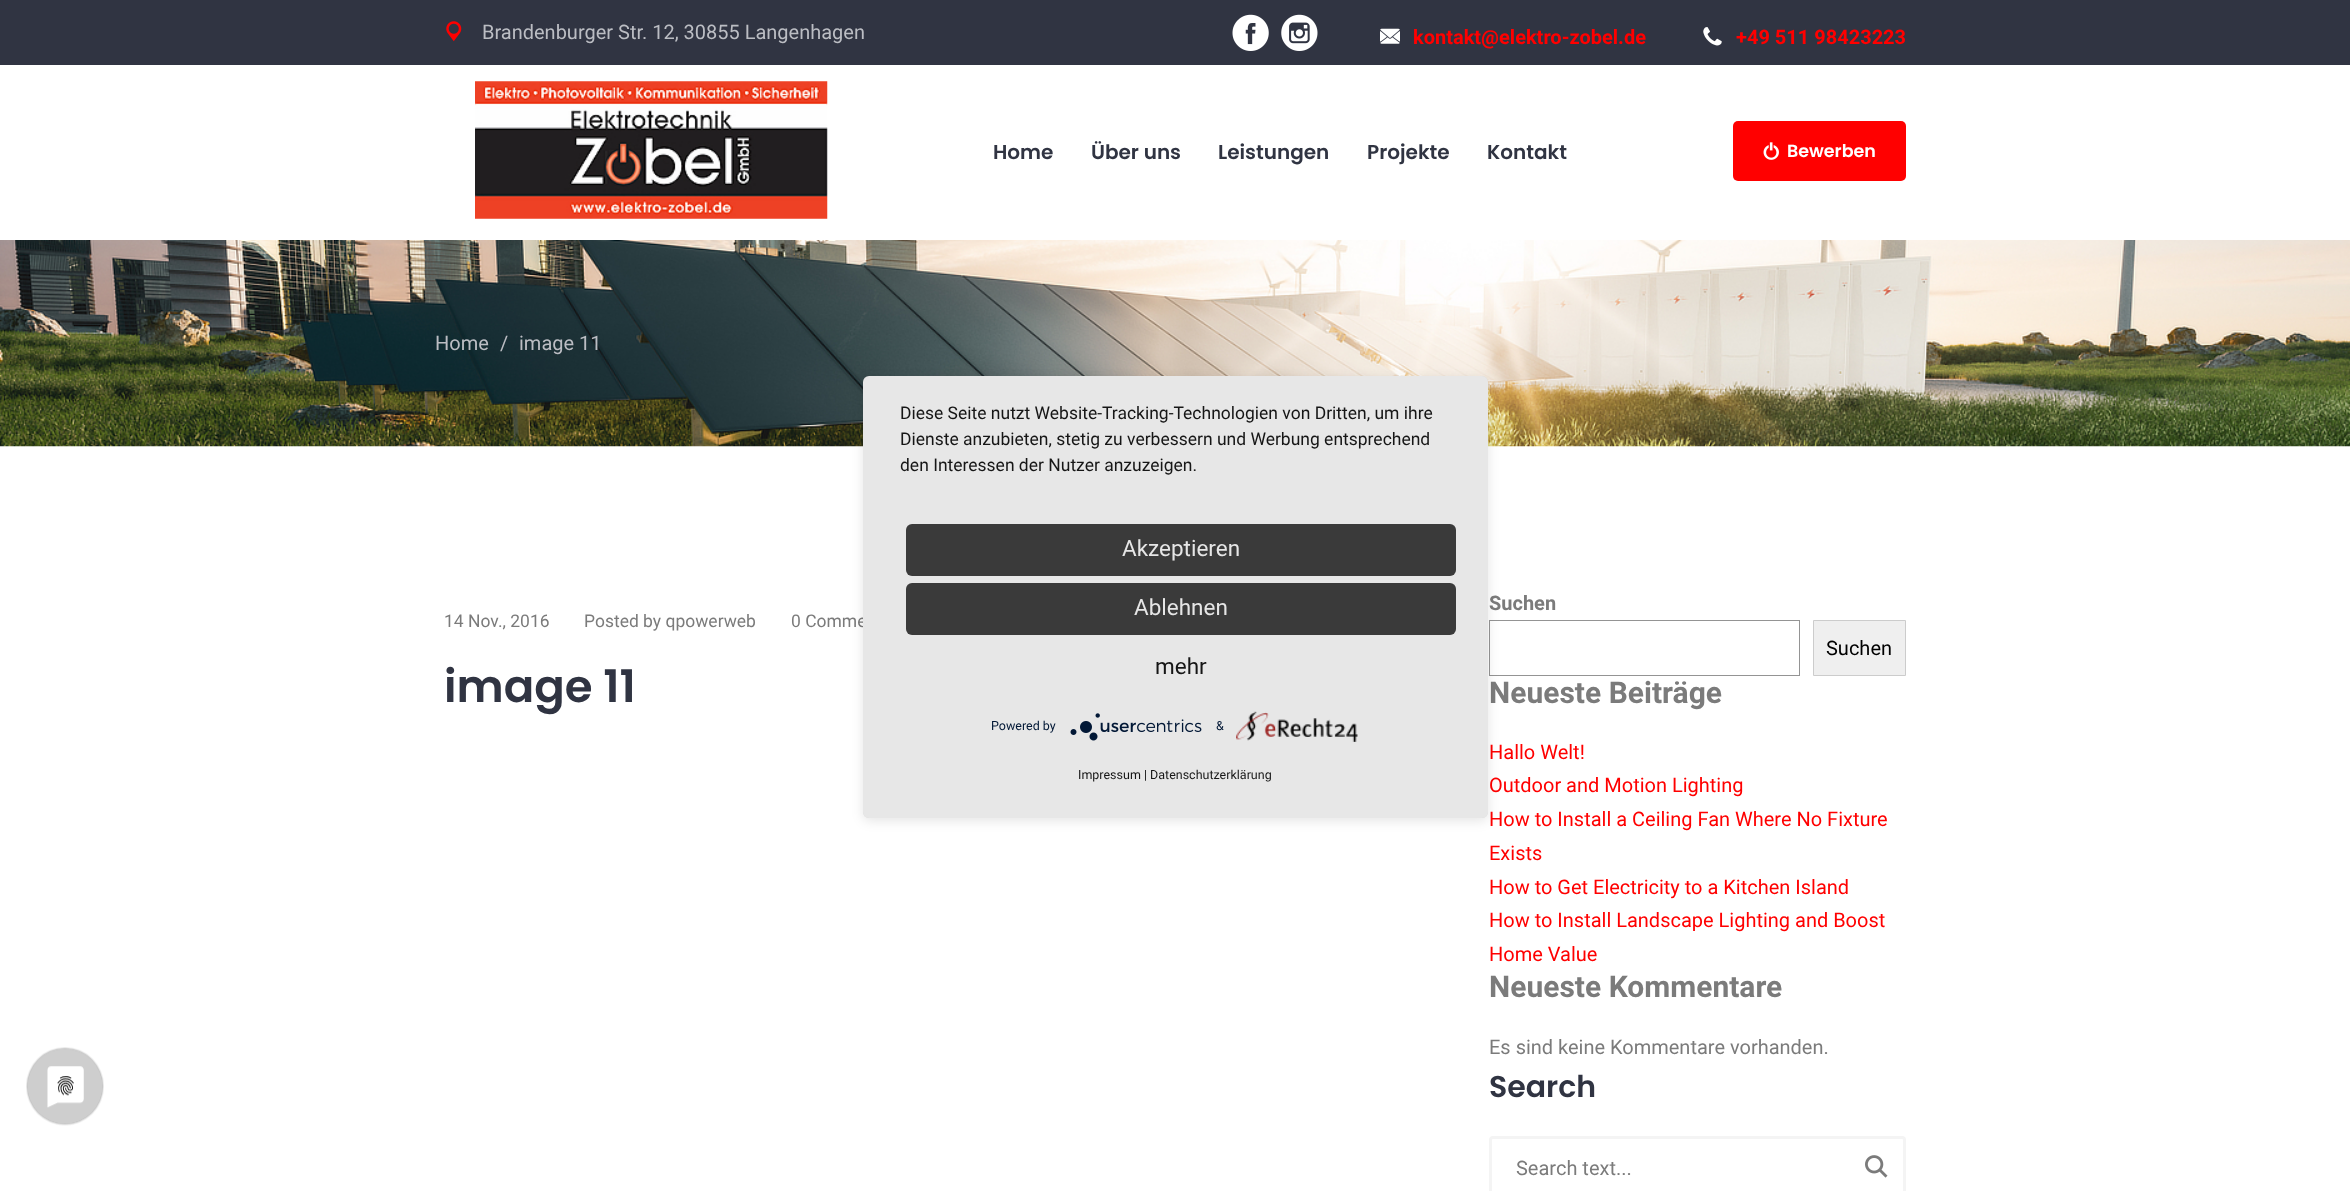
<!DOCTYPE html>
<meta charset="utf-8">
<style>body { margin: 0 } canvas { display: block }</style>
<canvas id="canvas" width="2350" height="1191"></canvas>
<script type="module">
  const canvas = document.getElementById("canvas");
  const ctx = canvas.getContext("2d");
  ctx.miterLimit = 4;
  ctx.fontKerning = "normal";
  async function loadImage(src) {
    const img = new Image();
    img.src = src;
    await img.decode();
    return img;
  }

  ctx.fillStyle = "#ffffff";
  ctx.fillRect(0, 0, 2350, 1191);
  ctx.fillStyle = "#303442";
  ctx.fillRect(0, 0, 2350, 65);
  ctx.drawImage(await loadImage("img1.png"), 446, 21, 16, 21);
  ctx.font = "20px Roboto";
  ctx.fillStyle = "#bbbdc3";
  ctx.fillText("Brandenburger Str. 12, 30855 Langenhagen", 482, 39);
  ctx.drawImage(await loadImage("img2.png"), 1232, 14, 37, 37);
  ctx.drawImage(await loadImage("img3.png"), 1281, 14, 37, 37);
  ctx.drawImage(await loadImage("img4.png"), 1380, 28, 20, 16);
  ctx.font = "bold 20px Roboto";
  ctx.fillStyle = "#ff0000";
  ctx.fillText("kontakt@elektro-zobel.de", 1413, 44);
  ctx.drawImage(await loadImage("img5.png"), 1703, 27, 19, 19);
  ctx.fillText("+49 511 98423223", 1736, 44);
  ctx.drawImage(await loadImage("img6.png"), 475, 81, 353, 138);
  ctx.font = "600 20px Poppins";
  ctx.fillStyle = "#303442";
  ctx.fillText("Home", 993, 159);
  ctx.fillText("Über uns", 1091, 159);
  ctx.fillText("Leistungen", 1218, 159);
  ctx.fillText("Projekte", 1367, 159);
  ctx.fillText("Kontakt", 1487, 159);
  ctx.fillStyle = "#ff0000";
  ctx.beginPath();
  ctx.roundRect(1733, 121, 173, 60, 5);
  ctx.fill();
  ctx.drawImage(await loadImage("img7.png"), 1763, 142, 16, 18);
  ctx.font = "600 17.5px Poppins";
  ctx.fillStyle = "#ffffff";
  ctx.fillText("Bewerben", 1787, 157);
  ctx.drawImage(await loadImage("img8.png"), 0, 240, 2350, 207);
  ctx.font = "20px Roboto";
  ctx.fillStyle = "#bbbdc3";
  ctx.fillText("Home", 435, 350);
  ctx.fillText("/", 500, 350);
  ctx.fillText("image 11", 519, 350);
  ctx.font = "17.5px Roboto";
  ctx.fillStyle = "#7b7b7b";
  ctx.fillText("14 Nov., 2016", 444, 627);
  ctx.fillText("Posted by qpowerweb", 584, 627);
  ctx.fillText("0 Comme", 791, 627);
  ctx.font = "600 45px Poppins";
  ctx.fillStyle = "#303442";
  ctx.fillText("image 11", 444, 702);
  ctx.font = "bold 20px Roboto";
  ctx.fillStyle = "#7b7b7b";
  ctx.fillText("Suchen", 1489, 610);
  ctx.strokeStyle = "#949494";
  ctx.strokeRect(1489.5, 620.5, 310, 55);
  ctx.fillStyle = "#efefef";
  ctx.beginPath();
  ctx.rect(1813.5, 620.5, 92, 55);
  ctx.fill();
  ctx.strokeStyle = "#cccccc";
  ctx.stroke();
  ctx.font = "20px Roboto";
  ctx.fillStyle = "#000000";
  ctx.fillText("Suchen", 1826, 655);
  ctx.font = "bold 30px Roboto";
  ctx.fillStyle = "#7b7b7b";
  ctx.fillText("Neueste Beiträge", 1489, 703);
  ctx.font = "20px Roboto";
  ctx.fillStyle = "#ff0000";
  ctx.fillText("Hallo Welt!", 1489, 759);
  ctx.fillText("Outdoor and Motion Lighting", 1489, 792);
  ctx.fillText("How to Install a Ceiling Fan Where No Fixture", 1489, 826);
  ctx.fillText("Exists", 1489, 860);
  ctx.fillText("How to Get Electricity to a Kitchen Island", 1489, 894);
  ctx.fillText("How to Install Landscape Lighting and Boost", 1489, 927);
  ctx.fillText("Home Value", 1489, 961);
  ctx.font = "bold 30px Roboto";
  ctx.fillStyle = "#7b7b7b";
  ctx.fillText("Neueste Kommentare", 1489, 997);
  ctx.font = "20px Roboto";
  ctx.fillText("Es sind keine Kommentare vorhanden.", 1489, 1054);
  ctx.font = "600 30px Poppins";
  ctx.fillStyle = "#303442";
  ctx.fillText("Search", 1489, 1097);
  ctx.beginPath();
  ctx.roundRect(1490.5, 1137.5, 414, 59, 2.5);
  ctx.strokeStyle = "#f4f4f4";
  ctx.lineWidth = 3;
  ctx.stroke();
  ctx.font = "20px Roboto";
  ctx.fillStyle = "#7b7b7b";
  ctx.fillText("Search text...", 1516, 1175);
  ctx.drawImage(await loadImage("img9.png"), 1865, 1155, 23, 23);
  ctx.fillStyle = "rgba(0, 0, 0, 0.1)";
  ctx.filter = "blur(6px)";
  ctx.beginPath();
  ctx.roundRect(863, 380, 625, 441, 6);
  ctx.fill();
  ctx.filter = "none";
  ctx.save();
  ctx.beginPath();
  ctx.roundRect(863, 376, 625, 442, 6);
  ctx.clip();
  ctx.fillStyle = "rgba(0, 0, 0, 0.3)";
  ctx.filter = "blur(22.5px)";
  ctx.beginPath();
  ctx.rect(863, 384, 625, 441);
  ctx.fill();
  ctx.filter = "none";
  ctx.restore();
  ctx.fillStyle = "#e7e7e7";
  ctx.beginPath();
  ctx.roundRect(863, 376, 625, 442, 6);
  ctx.fill();
  ctx.font = "17.5px Roboto";
  ctx.fillStyle = "#161616";
  ctx.fillText("Diese Seite nutzt Website-Tracking-Technologien von Dritten, um ihre", 900, 419);
  ctx.fillText("Dienste anzubieten, stetig zu verbessern und Werbung entsprechend", 900, 445);
  ctx.fillText("den Interessen der Nutzer anzuzeigen.", 900, 471);
  ctx.fillStyle = "#3a3a3a";
  ctx.beginPath();
  ctx.roundRect(906, 524, 550, 52, 6);
  ctx.fill();
  ctx.font = "22.5px Roboto";
  ctx.fillStyle = "#e6e6e6";
  ctx.fillText("Akzeptieren", 1122, 556);
  ctx.fillStyle = "#3a3a3a";
  ctx.beginPath();
  ctx.roundRect(906, 583, 550, 52, 6);
  ctx.fill();
  ctx.fillStyle = "#e6e6e6";
  ctx.fillText("Ablehnen", 1134, 615);
  ctx.fillStyle = "#161616";
  ctx.fillText("mehr", 1155, 674);
  ctx.font = "12.5px Roboto";
  ctx.fillStyle = "#021836";
  ctx.fillText("Powered by", 991, 730);
  ctx.drawImage(await loadImage("img10.png"), 1070, 713, 132, 28);
  ctx.fillText("&", 1216, 730);
  ctx.drawImage(await loadImage("img11.png"), 1236, 711, 122, 31);
  ctx.fillStyle = "#161616";
  ctx.fillText("Impressum | Datenschutzerklärung", 1078, 779);
  ctx.drawImage(await loadImage("img12.png"), 26, 1047, 78, 79);
</script>
